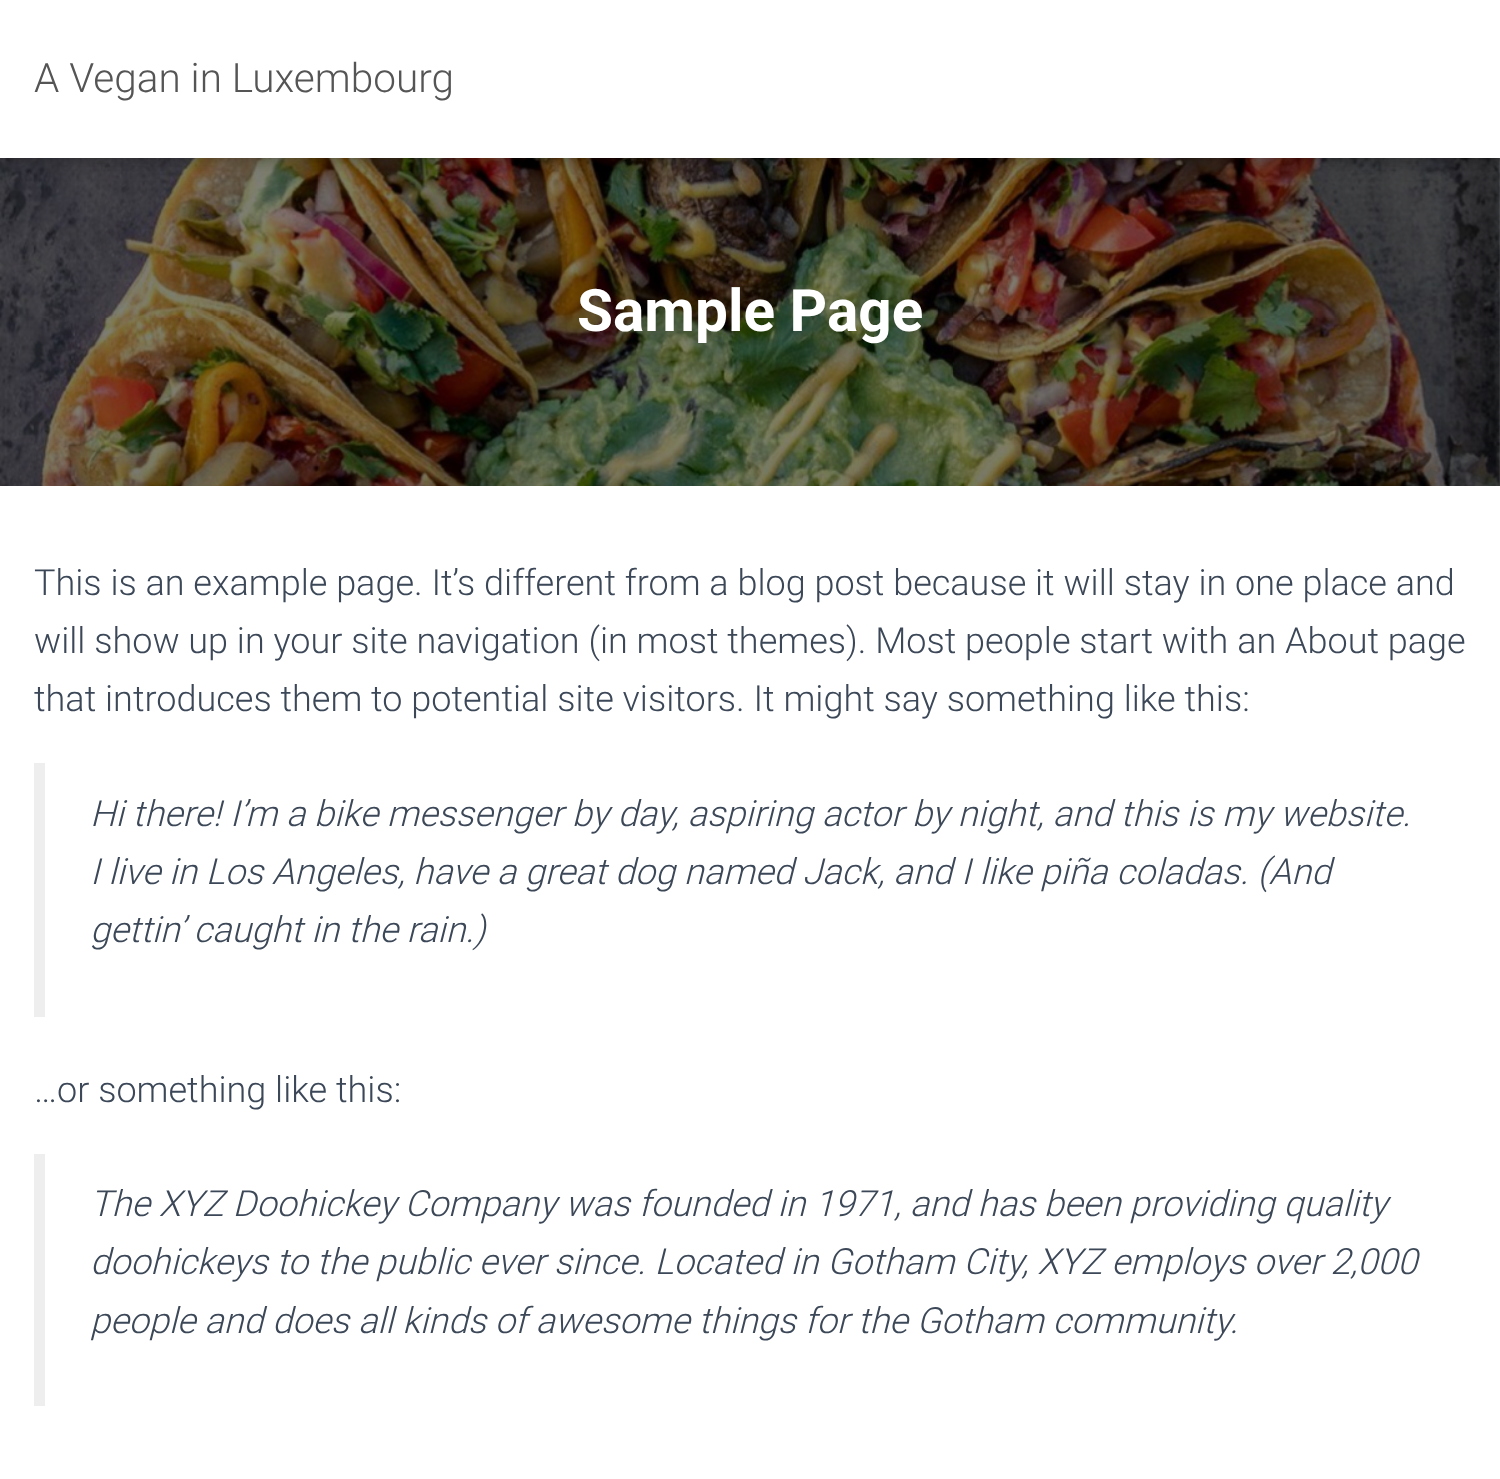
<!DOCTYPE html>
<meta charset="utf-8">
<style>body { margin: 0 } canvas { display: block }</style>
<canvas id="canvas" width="1500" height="1479"></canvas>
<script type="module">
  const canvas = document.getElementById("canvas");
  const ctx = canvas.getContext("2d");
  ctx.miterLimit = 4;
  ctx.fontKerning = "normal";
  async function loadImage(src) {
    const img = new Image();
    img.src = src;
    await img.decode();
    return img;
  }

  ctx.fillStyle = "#ffffff";
  ctx.fillRect(0, 0, 1500, 1479);
  ctx.drawImage(await loadImage("img1.png"), 0, 158, 1500, 328);
  ctx.fillStyle = "rgba(0, 0, 0, 0.1)";
  ctx.filter = "blur(5.5px)";
  ctx.beginPath();
  ctx.rect(5, 14, 1491, 148);
  ctx.fill();
  ctx.filter = "none";
  ctx.fillStyle = "rgba(0, 0, 0, 0.12)";
  ctx.filter = "blur(11px)";
  ctx.beginPath();
  ctx.rect(0, 2, 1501, 158);
  ctx.fill();
  ctx.filter = "none";
  ctx.fillStyle = "rgba(0, 0, 0, 0.42)";
  ctx.filter = "blur(11px)";
  ctx.beginPath();
  ctx.rect(14, 16, 1473, 130);
  ctx.fill();
  ctx.filter = "none";
  ctx.fillStyle = "#ffffff";
  ctx.fillRect(0, 0, 1500, 158);
  ctx.font = "300 40.5px Roboto";
  ctx.fillStyle = "#555555";
  ctx.fillText("A Vegan in Luxembourg", 34, 92);
  ctx.font = "bold 58.5px Roboto";
  ctx.fillStyle = "#ffffff";
  ctx.fillText("Sample Page", 577, 331);
  ctx.fillStyle = "rgba(0, 0, 0, 0.12)";
  ctx.filter = "blur(34px)";
  ctx.beginPath();
  ctx.rect(-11, 488, 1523, 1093);
  ctx.fill();
  ctx.filter = "none";
  ctx.fillStyle = "#ffffff";
  ctx.fillRect(0, 486, 1500, 993);
  ctx.font = "300 36px Roboto";
  ctx.fillStyle = "#3c4858";
  ctx.fillText("This is an example page. It’s different from a blog post because it will stay in one place and", 34, 595);
  ctx.fillText("will show up in your site navigation (in most themes). Most people start with an About page", 34, 653);
  ctx.fillText("that introduces them to potential site visitors. It might say something like this:", 34, 711);
  ctx.fillStyle = "#eeeeee";
  ctx.fillRect(34, 763, 11, 254);
  ctx.font = "italic 300 36px Roboto";
  ctx.fillStyle = "#3c4858";
  ctx.fillText("Hi there! I’m a bike messenger by day, aspiring actor by night, and this is my website.", 90, 826);
  ctx.fillText("I live in Los Angeles, have a great dog named Jack, and I like piña coladas. (And", 90, 884);
  ctx.fillText("gettin’ caught in the rain.)", 90, 942);
  ctx.font = "300 36px Roboto";
  ctx.fillText("…or something like this:", 34, 1102);
  ctx.fillStyle = "#eeeeee";
  ctx.fillRect(34, 1154, 11, 252);
  ctx.font = "italic 300 36px Roboto";
  ctx.fillStyle = "#3c4858";
  ctx.fillText("The XYZ Doohickey Company was founded in 1971, and has been providing quality", 90, 1216);
  ctx.fillText("doohickeys to the public ever since. Located in Gotham City, XYZ employs over 2,000", 90, 1274);
  ctx.fillText("people and does all kinds of awesome things for the Gotham community.", 90, 1333);
</script>
